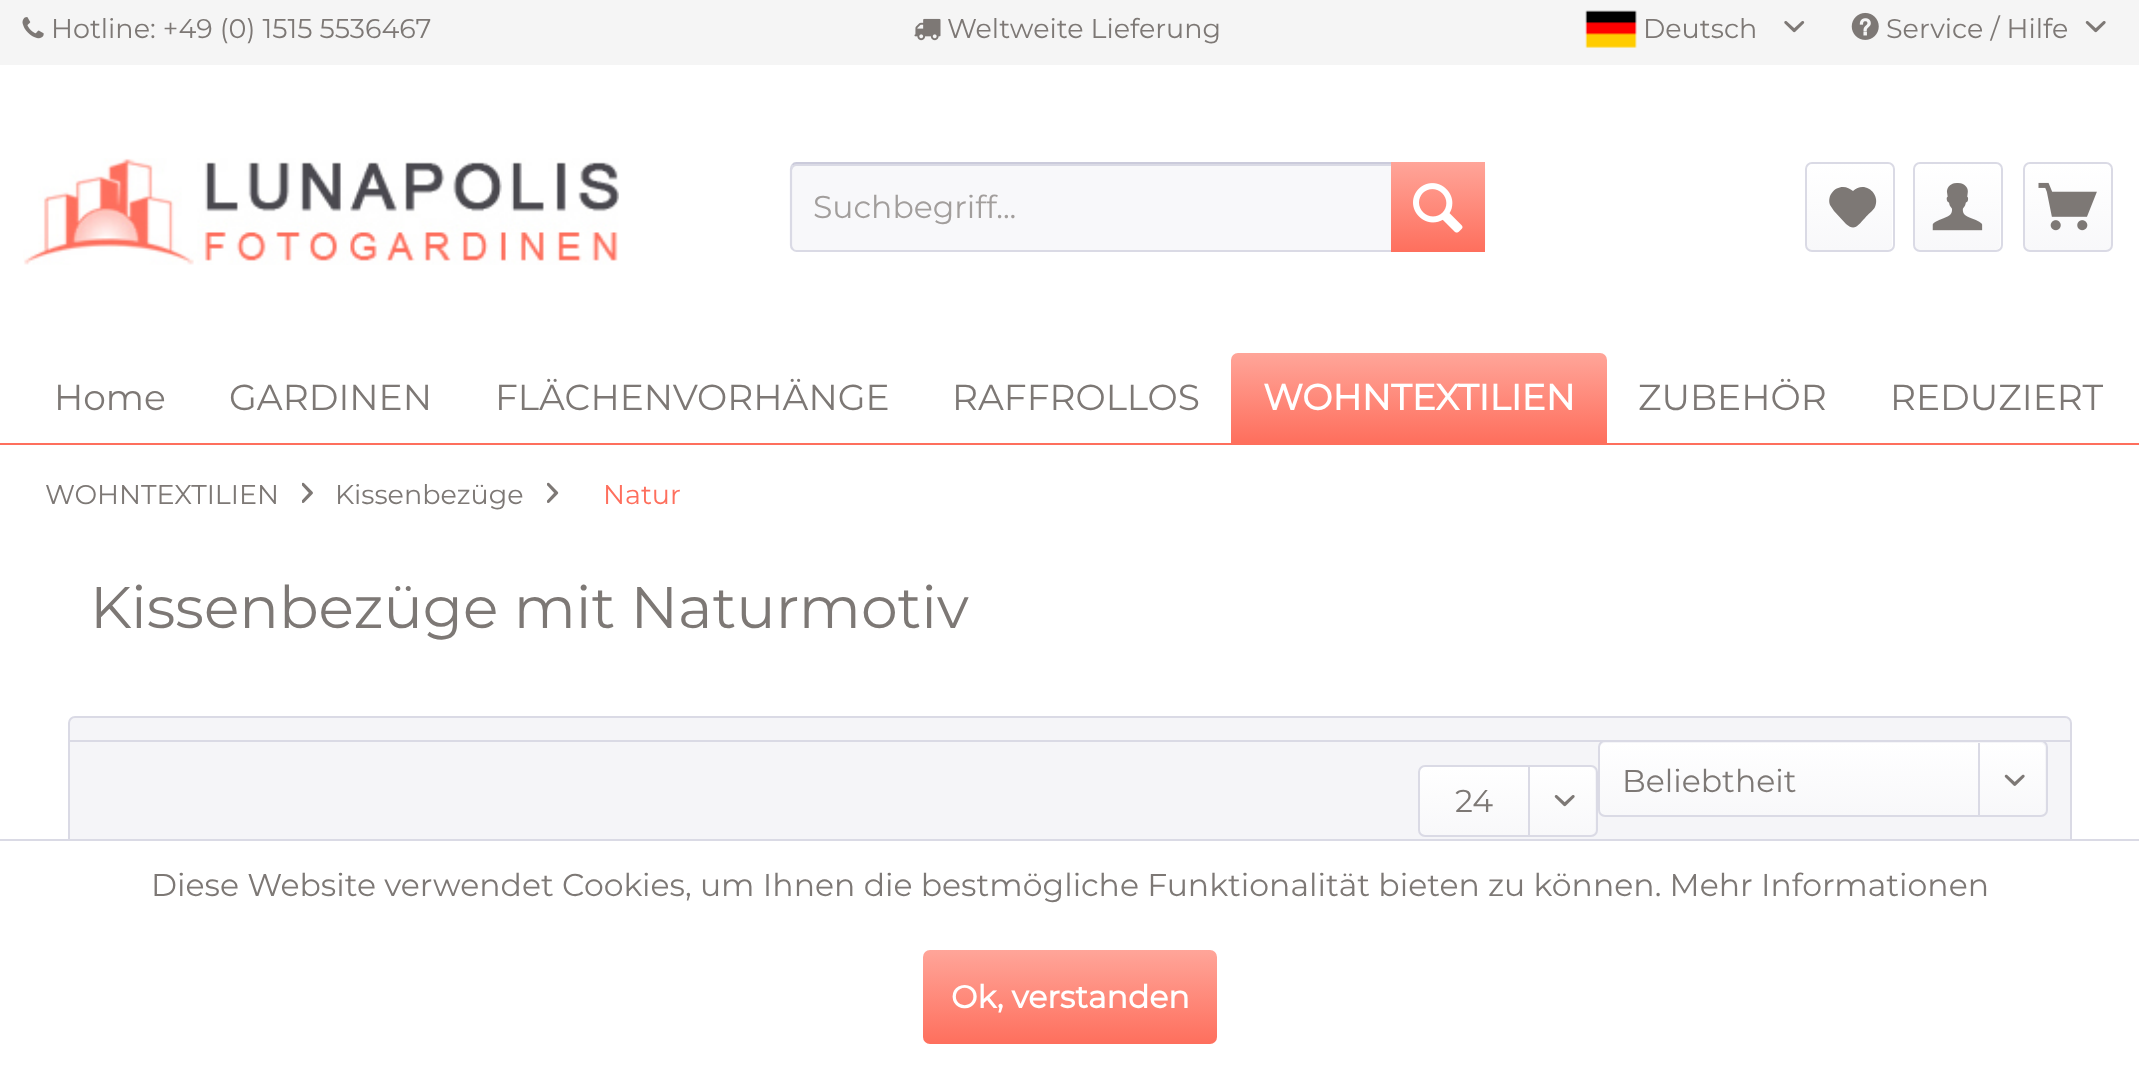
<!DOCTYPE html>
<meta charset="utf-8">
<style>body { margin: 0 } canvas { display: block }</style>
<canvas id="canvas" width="2139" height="1065"></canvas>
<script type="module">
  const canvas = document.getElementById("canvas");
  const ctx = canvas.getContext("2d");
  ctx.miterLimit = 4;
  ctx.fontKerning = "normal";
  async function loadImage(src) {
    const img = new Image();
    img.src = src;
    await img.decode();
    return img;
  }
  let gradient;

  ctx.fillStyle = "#ffffff";
  ctx.fillRect(0, 0, 2139, 1065);
  ctx.fillStyle = "#f5f5f5";
  ctx.fillRect(0, 0, 2139, 65);
  ctx.drawImage(await loadImage("img1.png"), 22, 17, 22, 22);
  ctx.font = "27px Montserrat";
  ctx.fillStyle = "#7d7875";
  ctx.fillText("Hotline: +49 (0) 1515 5536467", 51, 38);
  ctx.drawImage(await loadImage("img2.png"), 914, 18, 27, 23);
  ctx.fillText("Weltweite Lieferung", 947, 38);
  ctx.drawImage(await loadImage("img3.png"), 1585, 10, 52, 38);
  ctx.fillText("Deutsch", 1643, 38);
  ctx.drawImage(await loadImage("img4.png"), 1784, 21, 21, 12);
  ctx.drawImage(await loadImage("img5.png"), 1851, 12, 28, 28);
  ctx.fillText("Service / Hilfe", 1886, 38);
  ctx.drawImage(await loadImage("img6.png"), 2085, 21, 21, 12);
  ctx.drawImage(await loadImage("img7.png"), 23, 158, 596, 107);
  ctx.fillStyle = "#f8f8fa";
  ctx.beginPath();
  ctx.roundRect(790, 162, 695, 90, 7);
  ctx.fill();
  ctx.fillStyle = "#dadae5";
  ctx.beginPath();
  ctx.moveTo(796, 166);
  ctx.lineTo(1478, 166);
  ctx.bezierCurveTo(1481, 166, 1483, 169, 1483, 171);
  ctx.lineTo(1483, 169);
  ctx.bezierCurveTo(1483, 166, 1481, 164, 1478, 164);
  ctx.lineTo(797, 164);
  ctx.bezierCurveTo(794, 164, 792, 166, 792, 169);
  ctx.lineTo(792, 171);
  ctx.bezierCurveTo(792, 169, 794, 166, 796, 166);
  ctx.closePath();
  ctx.fill();
  ctx.beginPath();
  ctx.moveTo(792.5, 165);
  ctx.bezierCurveTo(793.5, 163.5, 795, 163, 796.5, 163);
  ctx.lineTo(1478, 163);
  ctx.bezierCurveTo(1479.5, 163, 1481, 163.5, 1482, 165);
  ctx.strokeStyle = "#cbcbdb";
  ctx.lineWidth = 2.2;
  ctx.stroke();
  ctx.beginPath();
  ctx.moveTo(1482, 165);
  ctx.bezierCurveTo(1483.5, 166, 1484, 167.5, 1484, 169);
  ctx.lineTo(1484, 245);
  ctx.bezierCurveTo(1484, 246.5, 1483.5, 248, 1482, 249);
  ctx.bezierCurveTo(1481, 250.5, 1479.5, 251, 1478, 251);
  ctx.lineTo(796.5, 251);
  ctx.bezierCurveTo(795, 251, 793.5, 250.5, 792.5, 249);
  ctx.bezierCurveTo(791.5, 248, 791, 246.5, 791, 245);
  ctx.lineTo(791, 169);
  ctx.bezierCurveTo(791, 167.5, 791.5, 166, 792.5, 165);
  ctx.strokeStyle = "#dadae5";
  ctx.stroke();
  ctx.font = "31.5px Montserrat";
  ctx.fillStyle = "#a29e9c";
  ctx.fillText("Suchbegriff...", 813, 218);
  gradient = ctx.createLinearGradient(1438, 162, 1438, 252);
  gradient.addColorStop(0, "#ffa599");
  gradient.addColorStop(1, "#fe6f5d");
  ctx.fillStyle = gradient;
  ctx.fillRect(1391, 162, 94, 90);
  ctx.drawImage(await loadImage("img8.png"), 1413, 183, 50, 50);
  gradient = ctx.createLinearGradient(1850, 164, 1850, 250);
  gradient.addColorStop(0, "#ffffff");
  gradient.addColorStop(1, "#f8f8fa");
  ctx.fillStyle = gradient;
  ctx.beginPath();
  ctx.roundRect(1807, 164, 85, 86, 5);
  ctx.fill();
  ctx.beginPath();
  ctx.roundRect(1806, 163, 88, 88, 6);
  ctx.lineWidth = 2;
  ctx.stroke();
  ctx.fillStyle = "#7d7875";
  ctx.beginPath();
  ctx.moveTo(1843, 187);
  ctx.bezierCurveTo(1834, 187, 1827, 196, 1830, 205);
  ctx.lineTo(1834, 211);
  ctx.lineTo(1846, 224);
  ctx.bezierCurveTo(1855, 232, 1858, 225, 1865, 218);
  ctx.bezierCurveTo(1868, 214, 1873, 211, 1875, 207);
  ctx.bezierCurveTo(1881, 193, 1864, 180, 1853, 191);
  ctx.bezierCurveTo(1850, 189, 1847, 187, 1843, 187);
  ctx.closePath();
  ctx.fill();
  gradient = ctx.createLinearGradient(1958, 164, 1958, 250);
  gradient.addColorStop(0, "#ffffff");
  gradient.addColorStop(1, "#f8f8fa");
  ctx.fillStyle = gradient;
  ctx.beginPath();
  ctx.roundRect(1915, 164, 85, 86, 5);
  ctx.fill();
  ctx.beginPath();
  ctx.roundRect(1914, 163, 88, 88, 6);
  ctx.stroke();
  ctx.drawImage(await loadImage("img9.png"), 1932, 183, 51, 48);
  gradient = ctx.createLinearGradient(2068, 164, 2068, 250);
  gradient.addColorStop(0, "#ffffff");
  gradient.addColorStop(1, "#f8f8fa");
  ctx.fillStyle = gradient;
  ctx.beginPath();
  ctx.roundRect(2025, 164, 86, 86, 5);
  ctx.fill();
  ctx.beginPath();
  ctx.roundRect(2024, 163, 88, 88, 6);
  ctx.stroke();
  ctx.drawImage(await loadImage("img10.png"), 2038, 182, 59, 49);
  ctx.fillStyle = "#fe6f5d";
  ctx.fillRect(0, 443, 2139, 2);
  ctx.font = "36px Montserrat";
  ctx.fillStyle = "#7d7875";
  ctx.fillText("Home", 54, 410);
  ctx.fillText("GARDINEN", 229, 410);
  ctx.fillText("FLÄCHENVORHÄNGE", 495, 410);
  ctx.fillText("RAFFROLLOS", 952, 410);
  gradient = ctx.createLinearGradient(1419, 353, 1419, 443);
  gradient.addColorStop(0, "#ffa599");
  gradient.addColorStop(1, "#fe6f5d");
  ctx.fillStyle = gradient;
  ctx.beginPath();
  ctx.roundRect(1231, 353, 376, 90, [7, 7, 0, 0]);
  ctx.fill();
  ctx.font = "bold 36px Montserrat";
  ctx.fillStyle = "#ffffff";
  ctx.fillText("WOHNTEXTILIEN", 1263, 410);
  ctx.font = "36px Montserrat";
  ctx.fillStyle = "#7d7875";
  ctx.fillText("ZUBEHÖR", 1638, 410);
  ctx.fillText("REDUZIERT", 1890, 410);
  ctx.font = "27px Montserrat";
  ctx.fillText("WOHNTEXTILIEN", 45, 504);
  ctx.drawImage(await loadImage("img11.png"), 302, 482, 11, 21);
  ctx.fillText("Kissenbezüge", 335, 504);
  ctx.drawImage(await loadImage("img12.png"), 547, 482, 12, 21);
  ctx.fillStyle = "#fe6f5d";
  ctx.fillText("Natur", 603, 504);
  ctx.font = "58.5px Montserrat";
  ctx.fillStyle = "#7d7875";
  ctx.fillText("Kissenbezüge mit Naturmotiv", 90, 628);
  ctx.fillStyle = "#f5f5f8";
  ctx.beginPath();
  ctx.roundRect(69, 717, 2002, 144, 6);
  ctx.fill();
  ctx.stroke();
  gradient = ctx.createLinearGradient(1823, 743, 1823, 815);
  gradient.addColorStop(0, "#ffffff");
  gradient.addColorStop(1, "#f8f8fa");
  ctx.fillStyle = gradient;
  ctx.beginPath();
  ctx.roundRect(1600, 743, 445, 72, 5);
  ctx.fill();
  ctx.fillStyle = "#dadae5";
  ctx.fillRect(70, 740, 2000, 2);
  ctx.beginPath();
  ctx.roundRect(1599, 741, 448, 75, 6);
  ctx.stroke();
  ctx.font = "31.5px Montserrat";
  ctx.fillStyle = "#7d7875";
  ctx.fillText("Beliebtheit", 1622, 792);
  ctx.fillStyle = "#dadae5";
  ctx.fillRect(1978, 743, 2, 74);
  ctx.drawImage(await loadImage("img13.png"), 2004, 774, 21, 12);
  gradient = ctx.createLinearGradient(1508, 767, 1508, 835);
  gradient.addColorStop(0, "#ffffff");
  gradient.addColorStop(1, "#f8f8fa");
  ctx.fillStyle = gradient;
  ctx.beginPath();
  ctx.roundRect(1420, 767, 175, 68, 5);
  ctx.fill();
  ctx.beginPath();
  ctx.roundRect(1419, 766, 178, 70, 6);
  ctx.stroke();
  ctx.fillStyle = "#7d7875";
  ctx.fillText("24", 1455, 812);
  ctx.fillStyle = "#dadae5";
  ctx.fillRect(1528, 767, 2, 70);
  ctx.drawImage(await loadImage("img14.png"), 1554, 795, 21, 12);
  ctx.fillStyle = "#ffffff";
  ctx.fillRect(68, 841, 2004, 21);
  ctx.fillStyle = "#dadae5";
  ctx.fillRect(0, 839, 2139, 2);
  ctx.fillStyle = "#7d7875";
  ctx.fillText("Diese Website verwendet Cookies, um Ihnen die bestmögliche Funktionalität bieten zu können. Mehr Informationen", 151, 896);
  gradient = ctx.createLinearGradient(1070, 950, 1070, 1044);
  gradient.addColorStop(0, "#ffa599");
  gradient.addColorStop(1, "#fe6f5d");
  ctx.fillStyle = gradient;
  ctx.beginPath();
  ctx.roundRect(923, 950, 294, 94, 7);
  ctx.fill();
  ctx.font = "bold 31.5px Montserrat";
  ctx.fillStyle = "#ffffff";
  ctx.fillText("Ok, verstanden", 951, 1008);
</script>
